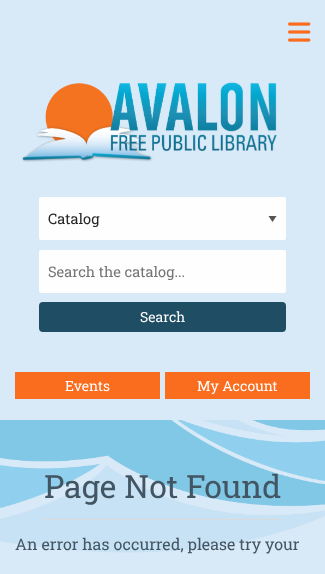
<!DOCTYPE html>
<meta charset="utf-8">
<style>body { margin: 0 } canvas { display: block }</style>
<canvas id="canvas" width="325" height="574"></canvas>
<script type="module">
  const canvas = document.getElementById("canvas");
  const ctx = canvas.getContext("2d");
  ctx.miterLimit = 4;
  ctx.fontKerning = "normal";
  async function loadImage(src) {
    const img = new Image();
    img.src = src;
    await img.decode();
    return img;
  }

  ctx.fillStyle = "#d8e9f7";
  ctx.fillRect(0, 0, 325, 574);
  ctx.drawImage(await loadImage("img1.png"), 288, 22, 23, 20);
  ctx.drawImage(await loadImage("img2.png"), 22, 82, 255, 80);
  ctx.fillStyle = "#fefefe";
  ctx.beginPath();
  ctx.roundRect(39, 197, 247, 43, 2);
  ctx.fill();
  ctx.fillStyle = "#545454";
  ctx.beginPath();
  ctx.moveTo(268.5, 216);
  ctx.lineTo(276.5, 216);
  ctx.lineTo(272.5, 222);
  ctx.closePath();
  ctx.fill();
  ctx.font = "14.6px Roboto Slab";
  ctx.fillStyle = "#282828";
  ctx.fillText("Catalog", 48, 224);
  ctx.fillStyle = "#fefefe";
  ctx.beginPath();
  ctx.roundRect(39, 250, 247, 43, 2);
  ctx.fill();
  ctx.fillStyle = "#757575";
  ctx.fillText("Search the catalog...", 48, 277);
  ctx.fillStyle = "#1f4d63";
  ctx.beginPath();
  ctx.roundRect(39, 302, 247, 30, 4);
  ctx.fill();
  ctx.font = "14px Roboto Slab";
  ctx.fillStyle = "#ffffff";
  ctx.fillText("Search", 140, 322);
  ctx.fillStyle = "#fb6d1e";
  ctx.fillRect(15, 372, 145, 27);
  ctx.fillStyle = "#ffffff";
  ctx.fillText("Events", 65, 391);
  ctx.fillStyle = "#fb6d1e";
  ctx.fillRect(165, 372, 145, 27);
  ctx.fillStyle = "#ffffff";
  ctx.fillText("My Account", 197, 391);
  ctx.drawImage(await loadImage("img3.png"), 0, 420, 325, 133);
  ctx.fillStyle = "#dadada";
  ctx.fillRect(44, 519, 237, 1);
  ctx.font = "32px Roboto Slab";
  ctx.fillStyle = "#425563";
  ctx.fillText("Page Not Found", 44, 498);
  ctx.font = "16px Roboto Slab";
  ctx.fillText("An error has occurred, please try your", 15, 550);
</script>
